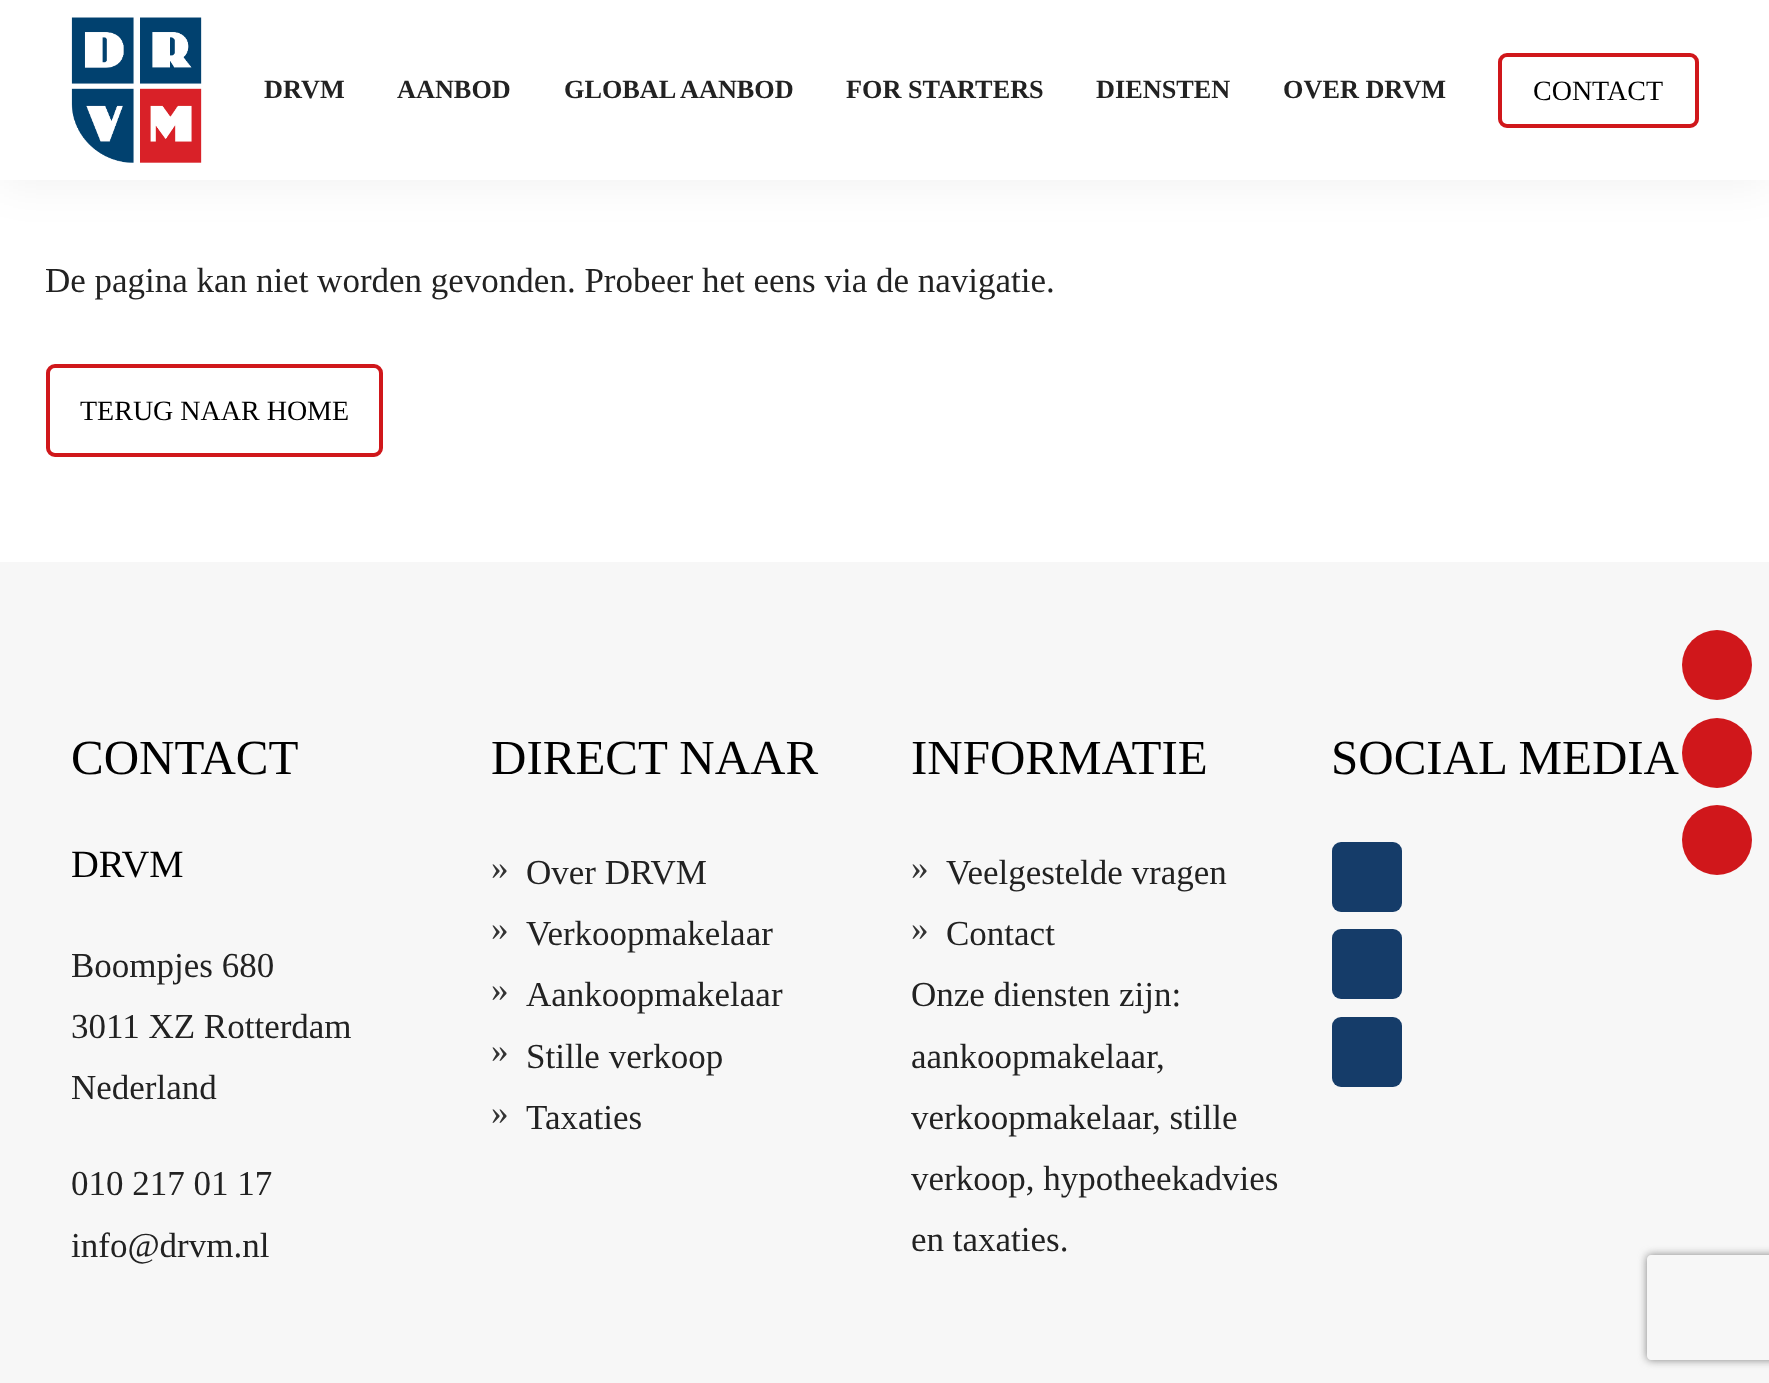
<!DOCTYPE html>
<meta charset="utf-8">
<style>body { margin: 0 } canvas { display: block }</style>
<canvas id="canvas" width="1769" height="1383"></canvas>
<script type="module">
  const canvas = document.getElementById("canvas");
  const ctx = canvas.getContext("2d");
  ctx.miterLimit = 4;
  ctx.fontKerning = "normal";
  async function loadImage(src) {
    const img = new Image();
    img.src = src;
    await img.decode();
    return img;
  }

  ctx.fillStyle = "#ffffff";
  ctx.fillRect(0, 0, 1769, 1383);
  ctx.fillStyle = "rgba(0, 0, 0, 0.05)";
  ctx.filter = "blur(22px)";
  ctx.beginPath();
  ctx.rect(0, 5, 1769, 181);
  ctx.fill();
  ctx.filter = "none";
  ctx.fillStyle = "#ffffff";
  ctx.fillRect(0, 0, 1769, 180);
  ctx.drawImage(await loadImage("img1.png"), 71, 17, 131, 146);
  ctx.font = "bold 26.25px Liberation Serif";
  ctx.fillStyle = "#222222";
  ctx.fillText("DRVM", 264, 98);
  ctx.fillText("AANBOD", 397, 98);
  ctx.fillText("GLOBAL AANBOD", 564, 98);
  ctx.fillText("FOR STARTERS", 846, 98);
  ctx.fillText("DIENSTEN", 1096, 98);
  ctx.fillText("OVER DRVM", 1283, 98);
  ctx.beginPath();
  ctx.roundRect(1500, 55, 197, 71, 7);
  ctx.strokeStyle = "#d0171b";
  ctx.lineWidth = 4;
  ctx.stroke();
  ctx.font = "28px Liberation Serif";
  ctx.fillStyle = "#000000";
  ctx.fillText("CONTACT", 1533, 100);
  ctx.font = "35px Liberation Serif";
  ctx.fillStyle = "#222222";
  ctx.fillText("De pagina kan niet worden gevonden. Probeer het eens via de navigatie.", 45, 292);
  ctx.beginPath();
  ctx.roundRect(48, 366, 333, 89, 7);
  ctx.stroke();
  ctx.font = "28px Liberation Serif";
  ctx.fillStyle = "#000000";
  ctx.fillText("TERUG NAAR HOME", 80, 420);
  ctx.fillStyle = "#f7f7f7";
  ctx.fillRect(0, 562, 1769, 821);
  ctx.font = "49px Liberation Serif";
  ctx.fillStyle = "#000000";
  ctx.fillText("CONTACT", 71, 774);
  ctx.font = "38.5px Liberation Serif";
  ctx.fillText("DRVM", 71, 877);
  ctx.font = "35px Liberation Serif";
  ctx.fillStyle = "#222222";
  ctx.fillText("Boompjes 680", 71, 977);
  ctx.fillText("3011 XZ Rotterdam", 71, 1038);
  ctx.fillText("Nederland", 71, 1099);
  ctx.fillText("010 217 01 17", 71, 1195);
  ctx.fillText("info@drvm.nl", 71, 1257);
  ctx.font = "49px Liberation Serif";
  ctx.fillStyle = "#000000";
  ctx.fillText("DIRECT NAAR", 491, 774);
  ctx.font = "35px Liberation Serif";
  ctx.fillStyle = "#333333";
  ctx.fillText("»", 491, 879);
  ctx.fillStyle = "#222222";
  ctx.fillText("Over DRVM", 526, 884);
  ctx.fillStyle = "#333333";
  ctx.fillText("»", 491, 940);
  ctx.fillStyle = "#222222";
  ctx.fillText("Verkoopmakelaar", 526, 945);
  ctx.fillStyle = "#333333";
  ctx.fillText("»", 491, 1001);
  ctx.fillStyle = "#222222";
  ctx.fillText("Aankoopmakelaar", 526, 1006);
  ctx.fillStyle = "#333333";
  ctx.fillText("»", 491, 1062);
  ctx.fillStyle = "#222222";
  ctx.fillText("Stille verkoop", 526, 1068);
  ctx.fillStyle = "#333333";
  ctx.fillText("»", 491, 1124);
  ctx.fillStyle = "#222222";
  ctx.fillText("Taxaties", 526, 1129);
  ctx.font = "49px Liberation Serif";
  ctx.fillStyle = "#000000";
  ctx.fillText("INFORMATIE", 911, 774);
  ctx.font = "35px Liberation Serif";
  ctx.fillStyle = "#333333";
  ctx.fillText("»", 911, 879);
  ctx.fillStyle = "#222222";
  ctx.fillText("Veelgestelde vragen", 946, 884);
  ctx.fillStyle = "#333333";
  ctx.fillText("»", 911, 940);
  ctx.fillStyle = "#222222";
  ctx.fillText("Contact", 946, 945);
  ctx.fillText("Onze diensten zijn:", 911, 1006);
  ctx.fillText("aankoopmakelaar", 911, 1068);
  ctx.fillText(",", 1156, 1068);
  ctx.fillText("verkoopmakelaar", 911, 1129);
  ctx.fillText(", stille", 1152, 1129);
  ctx.fillText("verkoop, hypotheekadvies", 911, 1190);
  ctx.fillText("en taxaties.", 911, 1251);
  ctx.font = "49px Liberation Serif";
  ctx.fillStyle = "#000000";
  ctx.fillText("SOCIAL MEDIA", 1331, 774);
  ctx.fillStyle = "#153c69";
  ctx.beginPath();
  ctx.roundRect(1332, 842, 70, 70, 9);
  ctx.fill();
  ctx.beginPath();
  ctx.roundRect(1332, 929, 70, 70, 9);
  ctx.fill();
  ctx.beginPath();
  ctx.roundRect(1332, 1017, 70, 70, 9);
  ctx.fill();
  ctx.fillStyle = "#d0171b";
  ctx.beginPath();
  ctx.arc(1717, 665, 35, 0, Math.PI * 2);
  ctx.fill();
  ctx.beginPath();
  ctx.arc(1717, 753, 35, 0, Math.PI * 2);
  ctx.fill();
  ctx.beginPath();
  ctx.arc(1717, 840, 35, 0, Math.PI * 2);
  ctx.fill();
  ctx.save();
  ctx.beginPath();
  ctx.moveTo(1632, 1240);
  ctx.lineTo(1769, 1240);
  ctx.lineTo(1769, 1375);
  ctx.lineTo(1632, 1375);
  ctx.closePath();
  ctx.moveTo(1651, 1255);
  ctx.lineTo(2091, 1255);
  ctx.bezierCurveTo(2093, 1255, 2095, 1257, 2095, 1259);
  ctx.lineTo(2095, 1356);
  ctx.bezierCurveTo(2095, 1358, 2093, 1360, 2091, 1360);
  ctx.lineTo(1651, 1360);
  ctx.bezierCurveTo(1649, 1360, 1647, 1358, 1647, 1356);
  ctx.lineTo(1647, 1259);
  ctx.bezierCurveTo(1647, 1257, 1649, 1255, 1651, 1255);
  ctx.closePath();
  ctx.clip("evenodd");
  ctx.fillStyle = "#808080";
  ctx.filter = "blur(4.5px)";
  ctx.beginPath();
  ctx.roundRect(1647, 1255, 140, 105, 4);
  ctx.fill();
  ctx.filter = "none";
  ctx.restore();
</script>
